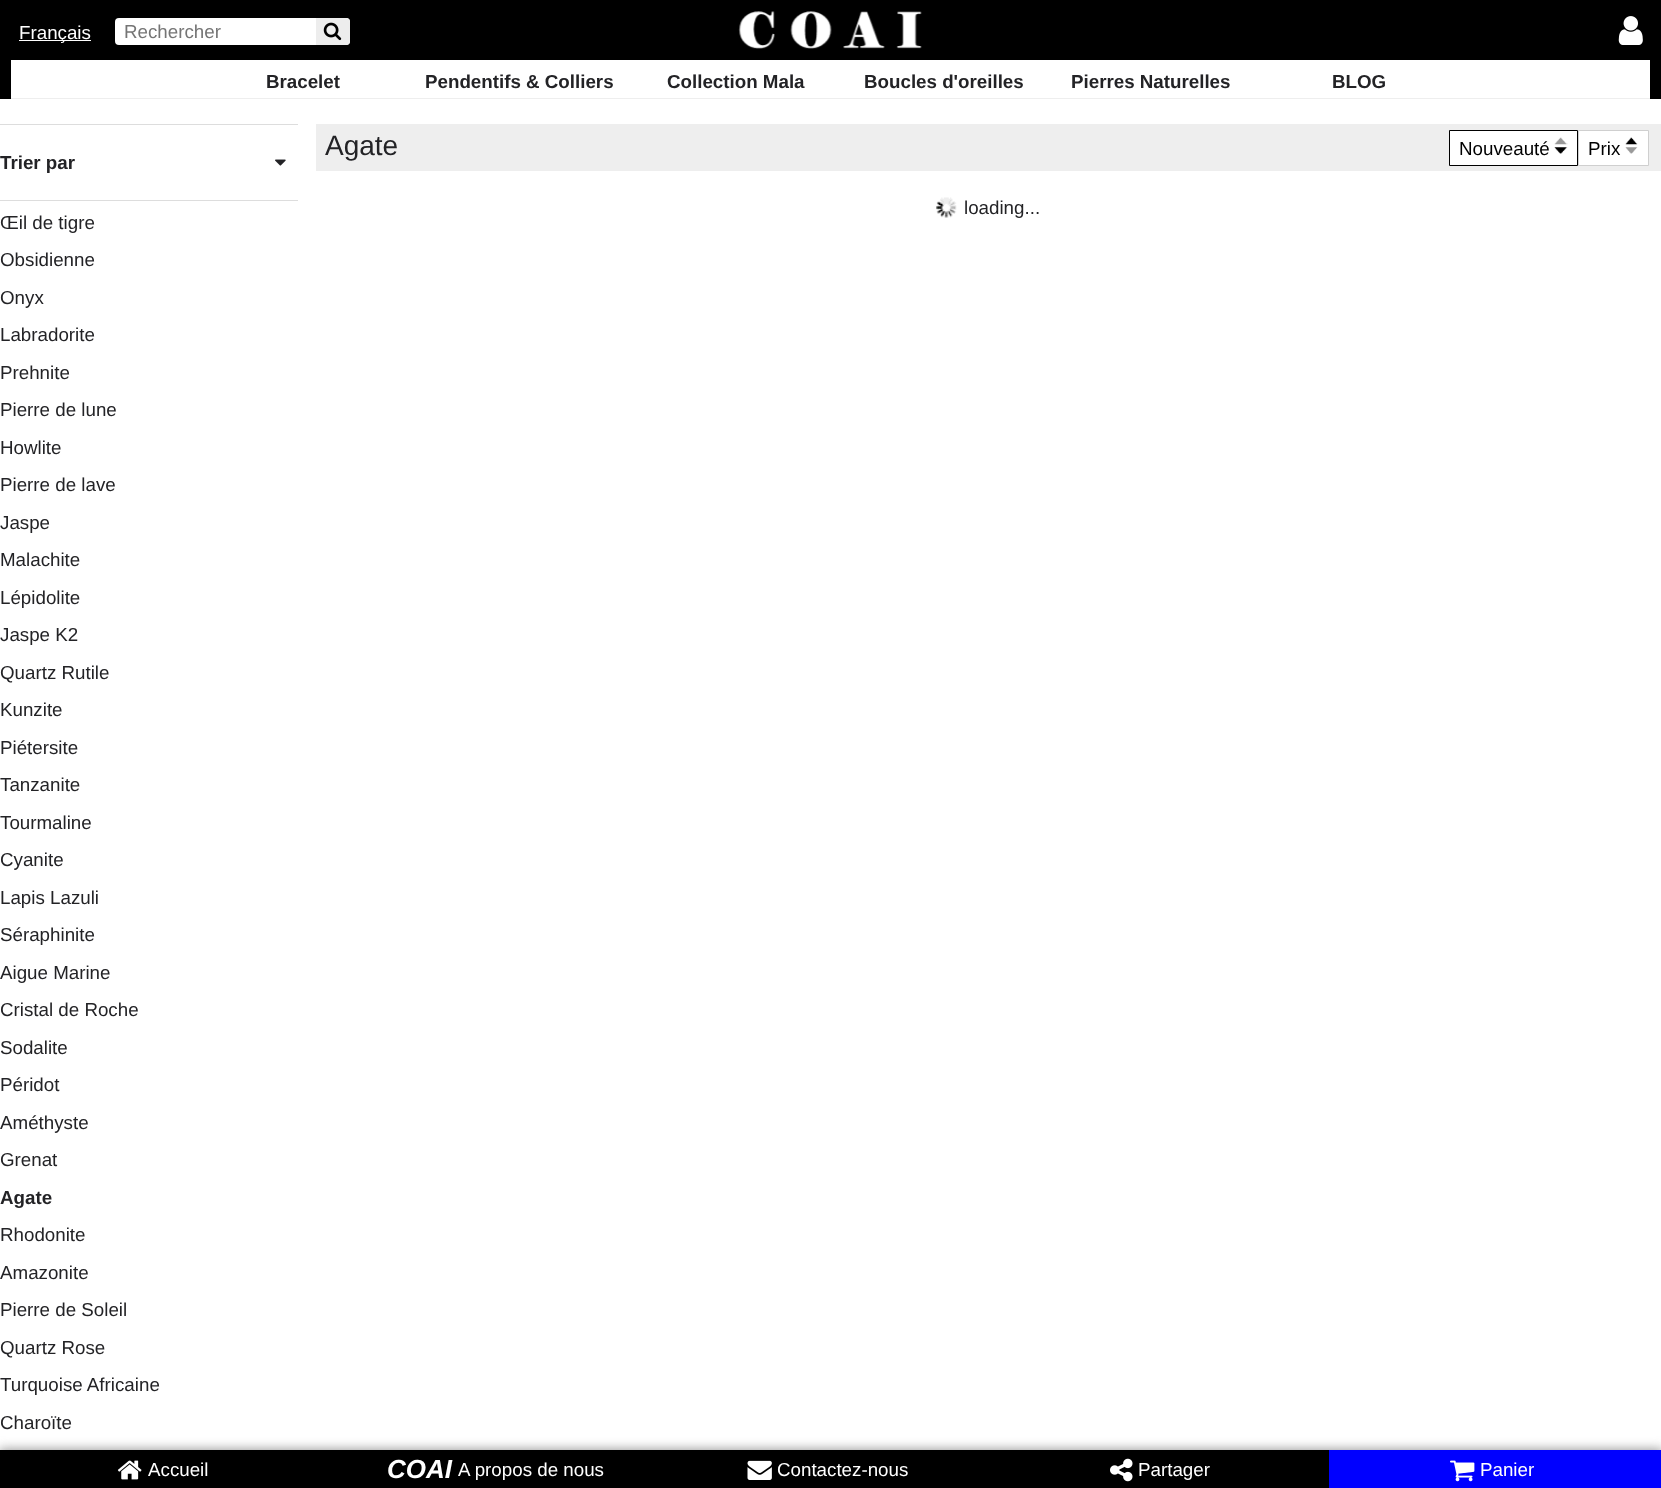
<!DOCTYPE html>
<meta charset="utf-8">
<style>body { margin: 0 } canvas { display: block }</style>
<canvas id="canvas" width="1661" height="1488"></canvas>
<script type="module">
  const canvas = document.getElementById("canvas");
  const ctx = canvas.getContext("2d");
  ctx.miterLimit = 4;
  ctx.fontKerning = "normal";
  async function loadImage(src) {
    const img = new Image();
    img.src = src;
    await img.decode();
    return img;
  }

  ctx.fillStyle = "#ffffff";
  ctx.fillRect(0, 0, 1661, 1488);
  ctx.fillStyle = "#000000";
  ctx.fillRect(0, 0, 1661, 99);
  ctx.fillStyle = "#ffffff";
  ctx.fillRect(19, 40, 72, 1);
  ctx.font = "18.75px Liberation Sans";
  ctx.fillText("Français", 19, 39);
  ctx.beginPath();
  ctx.roundRect(115, 18, 235, 27, 4);
  ctx.fill();
  ctx.fillStyle = "#757575";
  ctx.fillText("Rechercher", 124, 38);
  ctx.fillStyle = "#ededed";
  ctx.beginPath();
  ctx.roundRect(316, 18, 34, 27, [0, 4, 4, 0]);
  ctx.fill();
  ctx.drawImage(await loadImage("img1.png"), 323, 22, 19, 19);
  ctx.drawImage(await loadImage("img2.png"), 738, 11, 184, 38);
  ctx.drawImage(await loadImage("img3.png"), 1618, 16, 25, 29);
  ctx.fillStyle = "#ffffff";
  ctx.fillRect(11, 60, 1639, 38);
  ctx.fillStyle = "#eeeeee";
  ctx.fillRect(11, 98, 1639, 1);
  ctx.font = "bold 18.75px Liberation Sans";
  ctx.fillStyle = "#232326";
  ctx.fillText("Bracelet", 266, 88);
  ctx.fillText("Pendentifs & Colliers", 425, 88);
  ctx.fillText("Collection Mala", 667, 88);
  ctx.fillText("Boucles d'oreilles", 864, 88);
  ctx.fillText("Pierres Naturelles", 1071, 88);
  ctx.fillText("BLOG", 1332, 88);
  ctx.fillStyle = "#dddddd";
  ctx.fillRect(0, 124, 298, 1);
  ctx.fillRect(0, 200, 298, 1);
  ctx.fillStyle = "#232326";
  ctx.fillText("Trier par", 0, 169);
  ctx.drawImage(await loadImage("img4.png"), 275, 159, 11, 7);
  ctx.font = "18.75px Liberation Sans";
  ctx.fillText("Œil de tigre", 0, 229);
  ctx.fillText("Obsidienne", 0, 266);
  ctx.fillText("Onyx", 0, 304);
  ctx.fillText("Labradorite", 0, 341);
  ctx.fillText("Prehnite", 0, 379);
  ctx.fillText("Pierre de lune", 0, 416);
  ctx.fillText("Howlite", 0, 454);
  ctx.fillText("Pierre de lave", 0, 491);
  ctx.fillText("Jaspe", 0, 529);
  ctx.fillText("Malachite", 0, 566);
  ctx.fillText("Lépidolite", 0, 604);
  ctx.fillText("Jaspe K2", 0, 641);
  ctx.fillText("Quartz Rutile", 0, 679);
  ctx.fillText("Kunzite", 0, 716);
  ctx.fillText("Piétersite", 0, 754);
  ctx.fillText("Tanzanite", 0, 791);
  ctx.fillText("Tourmaline", 0, 829);
  ctx.fillText("Cyanite", 0, 866);
  ctx.fillText("Lapis Lazuli", 0, 904);
  ctx.fillText("Séraphinite", 0, 941);
  ctx.fillText("Aigue Marine", 0, 979);
  ctx.fillText("Cristal de Roche", 0, 1016);
  ctx.fillText("Sodalite", 0, 1054);
  ctx.fillText("Péridot", 0, 1091);
  ctx.fillText("Améthyste", 0, 1129);
  ctx.fillText("Grenat", 0, 1166);
  ctx.font = "bold 18.75px Liberation Sans";
  ctx.fillText("Agate", 0, 1204);
  ctx.font = "18.75px Liberation Sans";
  ctx.fillText("Rhodonite", 0, 1241);
  ctx.fillText("Amazonite", 0, 1279);
  ctx.fillText("Pierre de Soleil", 0, 1316);
  ctx.fillText("Quartz Rose", 0, 1354);
  ctx.fillText("Turquoise Africaine", 0, 1391);
  ctx.fillText("Charoïte", 0, 1429);
  ctx.fillStyle = "#eeeeee";
  ctx.fillRect(316, 124, 1345, 47);
  ctx.font = "28px Liberation Sans";
  ctx.fillStyle = "#232326";
  ctx.fillText("Agate", 325, 155);
  ctx.fillStyle = "#ffffff";
  ctx.beginPath();
  ctx.rect(1449.5, 130.5, 128, 35);
  ctx.fill();
  ctx.strokeStyle = "#000000";
  ctx.stroke();
  ctx.font = "18.75px Liberation Sans";
  ctx.fillStyle = "#000000";
  ctx.fillText("Nouveauté", 1459, 155);
  ctx.drawImage(await loadImage("img5.png"), 1554, 137, 14, 17);
  ctx.fillStyle = "#ffffff";
  ctx.beginPath();
  ctx.rect(1578.5, 130.5, 70, 35);
  ctx.fill();
  ctx.strokeStyle = "#cfcfcf";
  ctx.stroke();
  ctx.fillStyle = "#000000";
  ctx.fillText("Prix", 1588, 155);
  ctx.drawImage(await loadImage("img6.png"), 1625, 137, 13, 17);
  ctx.drawImage(await loadImage("img7.png"), 936, 197, 21, 21);
  ctx.fillStyle = "#232326";
  ctx.fillText("loading...", 964, 214);
  ctx.fillStyle = "#999999";
  ctx.filter = "blur(5.5px)";
  ctx.beginPath();
  ctx.rect(-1, 1449, 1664, 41);
  ctx.fill();
  ctx.filter = "none";
  ctx.fillStyle = "#000000";
  ctx.fillRect(0, 1450, 1329, 38);
  ctx.drawImage(await loadImage("img8.png"), 117, 1460, 25, 20);
  ctx.fillStyle = "#ffffff";
  ctx.fillText("Accueil", 148, 1476);
  ctx.font = "italic bold 26px Liberation Sans";
  ctx.fillText("COAI", 387, 1478);
  ctx.font = "18.75px Liberation Sans";
  ctx.fillText("A propos de nous", 458, 1476);
  ctx.drawImage(await loadImage("img9.png"), 747, 1460, 25, 20);
  ctx.fillText("Contactez-nous", 777, 1476);
  ctx.drawImage(await loadImage("img10.png"), 1110, 1458, 23, 24);
  ctx.fillText("Partager", 1138, 1476);
  ctx.fillStyle = "#0000ff";
  ctx.fillRect(1329, 1450, 332, 38);
  ctx.drawImage(await loadImage("img11.png"), 1450, 1460, 25, 22);
  ctx.fillStyle = "#ffffff";
  ctx.fillText("Panier", 1480, 1476);
</script>
